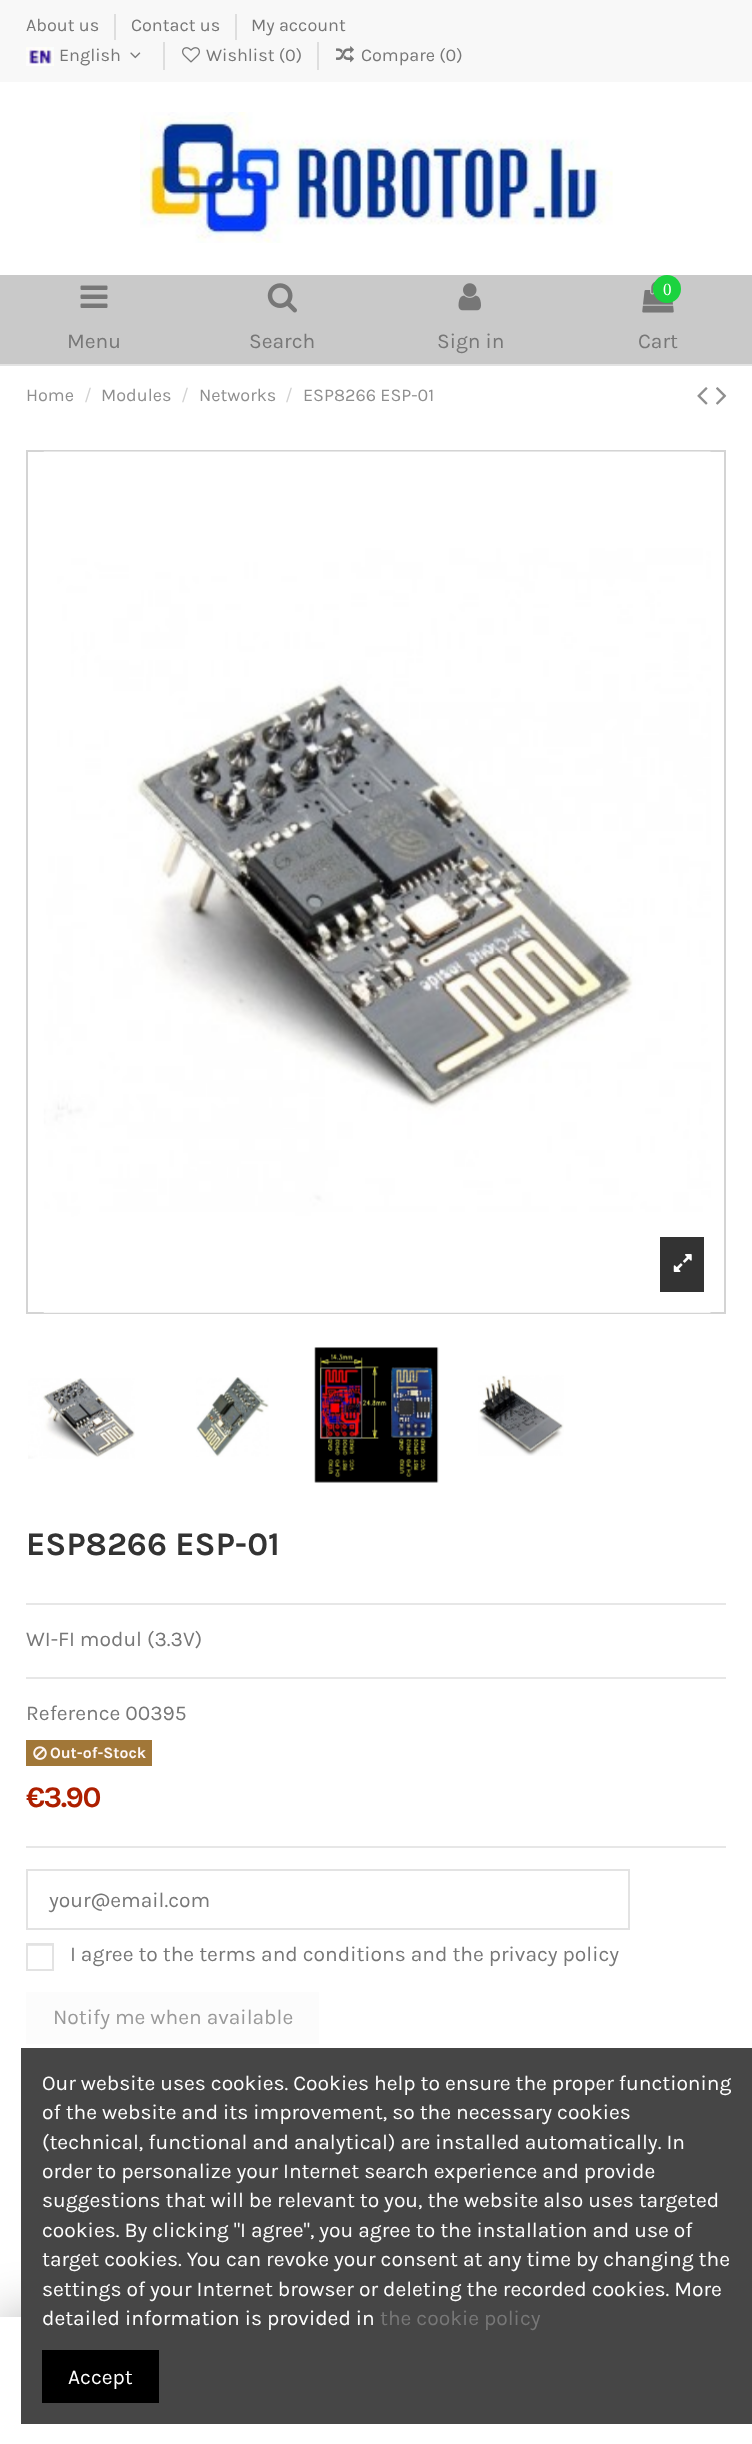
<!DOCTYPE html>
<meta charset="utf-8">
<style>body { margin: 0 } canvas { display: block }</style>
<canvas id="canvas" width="752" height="2444"></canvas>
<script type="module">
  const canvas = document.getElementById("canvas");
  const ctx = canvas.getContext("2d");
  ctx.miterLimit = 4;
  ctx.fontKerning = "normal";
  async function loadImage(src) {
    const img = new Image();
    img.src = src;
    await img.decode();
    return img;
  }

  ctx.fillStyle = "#ffffff";
  ctx.fillRect(0, 0, 752, 2444);
  ctx.fillStyle = "#f8f8f8";
  ctx.fillRect(0, 0, 752, 82);
  ctx.font = "18px Karla";
  ctx.fillStyle = "#777777";
  ctx.fillText("About us", 26, 31);
  ctx.fillStyle = "#dedede";
  ctx.fillRect(114, 14, 2, 26);
  ctx.fillStyle = "#777777";
  ctx.fillText("Contact us", 131, 31);
  ctx.fillStyle = "#dedede";
  ctx.fillRect(235, 14, 2, 26);
  ctx.fillStyle = "#777777";
  ctx.fillText("My account", 251, 31);
  ctx.drawImage(await loadImage("img1.png"), 26, 47, 28, 19);
  ctx.fillText("English", 59, 61);
  ctx.drawImage(await loadImage("img2.png"), 130, 52, 11, 7);
  ctx.fillStyle = "#dedede";
  ctx.fillRect(163, 42, 2, 28);
  ctx.drawImage(await loadImage("img3.png"), 182, 47, 18, 16);
  ctx.fillStyle = "#777777";
  ctx.fillText("Wishlist (0)", 206, 61);
  ctx.fillStyle = "#dedede";
  ctx.fillRect(317, 42, 2, 28);
  ctx.drawImage(await loadImage("img4.png"), 336, 46, 18, 17);
  ctx.fillStyle = "#777777";
  ctx.fillText("Compare (0)", 361, 61);
  ctx.fillStyle = "#e3e3e3";
  ctx.fillRect(0, 364, 752, 2);
  ctx.drawImage(await loadImage("img5.png"), 140, 112, 473, 131);
  ctx.fillStyle = "#c9c9c9";
  ctx.fillRect(0, 275, 752, 89);
  ctx.drawImage(await loadImage("img6.png"), 80, 285, 28, 23);
  ctx.font = "21px Karla";
  ctx.fillStyle = "#777777";
  ctx.fillText("Menu", 67, 348);
  ctx.drawImage(await loadImage("img7.png"), 267, 283, 30, 30);
  ctx.fillText("Search", 249, 348);
  ctx.drawImage(await loadImage("img8.png"), 458, 283, 23, 28);
  ctx.fillText("Sign in", 437, 348);
  ctx.drawImage(await loadImage("img9.png"), 642, 281, 32, 32);
  ctx.fillStyle = "#1bd33f";
  ctx.beginPath();
  ctx.arc(667, 289, 14, 0, Math.PI * 2);
  ctx.fill();
  ctx.font = "17px Liberation Serif";
  ctx.fillStyle = "#ffffff";
  ctx.fillText("0", 663, 295);
  ctx.font = "21px Karla";
  ctx.fillStyle = "#777777";
  ctx.fillText("Cart", 638, 348);
  ctx.font = "18px Karla";
  ctx.fillStyle = "#8f8f8f";
  ctx.fillText("Home", 26, 401);
  ctx.fillStyle = "#d2d2d2";
  ctx.fillText("/", 84, 401);
  ctx.fillStyle = "#8f8f8f";
  ctx.fillText("Modules", 101, 401);
  ctx.fillStyle = "#d2d2d2";
  ctx.fillText("/", 181, 401);
  ctx.fillStyle = "#8f8f8f";
  ctx.fillText("Networks", 199, 401);
  ctx.fillStyle = "#d2d2d2";
  ctx.fillText("/", 285, 401);
  ctx.fillStyle = "#8f8f8f";
  ctx.fillText("ESP8266 ESP-01", 303, 401);
  ctx.drawImage(await loadImage("img10.png"), 697, 387, 11, 18);
  ctx.drawImage(await loadImage("img11.png"), 716, 387, 11, 18);
  ctx.strokeStyle = "#d4d4d4";
  ctx.lineWidth = 2;
  ctx.strokeRect(27, 451, 698, 862);
  ctx.drawImage(await loadImage("img12.png"), 43, 451, 668, 862);
  ctx.fillStyle = "#333333";
  ctx.fillRect(660, 1237, 44, 55);
  ctx.drawImage(await loadImage("img13.png"), 673, 1254, 19, 18);
  ctx.drawImage(await loadImage("img14.png"), 28, 1378, 107, 81);
  ctx.drawImage(await loadImage("img15.png"), 196, 1377, 73, 80);
  ctx.drawImage(await loadImage("img16.png"), 314, 1347, 125, 136);
  ctx.drawImage(await loadImage("img17.png"), 478, 1375, 86, 81);
  ctx.fillStyle = "#e7e7e7";
  ctx.fillRect(26, 1603, 700, 2);
  ctx.font = "bold 33px Karla";
  ctx.fillStyle = "#333333";
  ctx.fillText("ESP8266 ESP-01", 26, 1555);
  ctx.font = "21px Karla";
  ctx.fillStyle = "#777777";
  ctx.fillText("WI-FI modul (3.3V)", 26, 1646);
  ctx.fillStyle = "#e7e7e7";
  ctx.fillRect(26, 1677, 700, 2);
  ctx.fillStyle = "#777777";
  ctx.fillText("Reference 00395", 26, 1720);
  ctx.fillStyle = "#a17738";
  ctx.fillRect(26, 1740, 126, 26);
  ctx.drawImage(await loadImage("img18.png"), 33, 1746, 14, 14);
  ctx.font = "bold 15.75px Karla";
  ctx.fillStyle = "#fff7f7";
  ctx.fillText("Out-of-Stock", 50, 1758);
  ctx.letterSpacing = "-1.5px";
  ctx.font = "bold 30px Karla";
  ctx.fillStyle = "#ad1f00";
  ctx.fillText("€3.90", 26, 1807);
  ctx.fillStyle = "rgba(0, 0, 0, 0.3)";
  ctx.filter = "blur(26px)";
  ctx.beginPath();
  ctx.rect(0, 2317, 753, 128);
  ctx.fill();
  ctx.filter = "none";
  ctx.fillStyle = "#ffffff";
  ctx.fillRect(0, 2317, 752, 127);
  ctx.fillStyle = "#e7e7e7";
  ctx.fillRect(26, 1846, 700, 2);
  ctx.strokeStyle = "#e3e3e3";
  ctx.strokeRect(27, 1870, 602, 59);
  ctx.letterSpacing = "0px";
  ctx.font = "21px Karla";
  ctx.fillStyle = "#777777";
  ctx.fillText("your@email.com", 49, 1907);
  ctx.fillStyle = "#e8e8e8";
  ctx.fillRect(28, 1945, 25, 1);
  ctx.strokeRect(27, 1944, 26, 26);
  ctx.fillStyle = "#777777";
  ctx.fillText("I agree to the terms and conditions and the privacy policy", 70, 1961);
  ctx.fillStyle = "#fcfcfc";
  ctx.fillRect(26, 1992, 293, 52);
  ctx.fillStyle = "#999999";
  ctx.fillText("Notify me when available", 53, 2024);
  ctx.fillStyle = "#464646";
  ctx.fillRect(21, 2048, 731, 376);
  ctx.fillStyle = "#ffffff";
  ctx.fillText("Our website uses cookies. Cookies help to ensure the proper functioning", 42, 2090);
  ctx.fillText("of the website and its improvement, so the necessary cookies", 42, 2119);
  ctx.fillText("(technical, functional and analytical) are installed automatically. In", 42, 2149);
  ctx.fillText("order to personalize your Internet search experience and provide", 42, 2178);
  ctx.fillText("suggestions that will be relevant to you, the website also uses targeted", 42, 2207);
  ctx.fillText("cookies. By clicking \"I agree\", you agree to the installation and use of", 42, 2237);
  ctx.fillText("target cookies. You can revoke your consent at any time by changing the", 42, 2266);
  ctx.fillText("settings of your Internet browser or deleting the recorded cookies. More", 42, 2296);
  ctx.fillText("detailed information is provided in", 42, 2325);
  ctx.fillStyle = "#777777";
  ctx.fillText("the cookie policy", 380, 2325);
  ctx.fillStyle = "#000000";
  ctx.fillRect(42, 2350, 117, 53);
  ctx.fillStyle = "#ffffff";
  ctx.fillText("Accept", 68, 2384);
</script>
